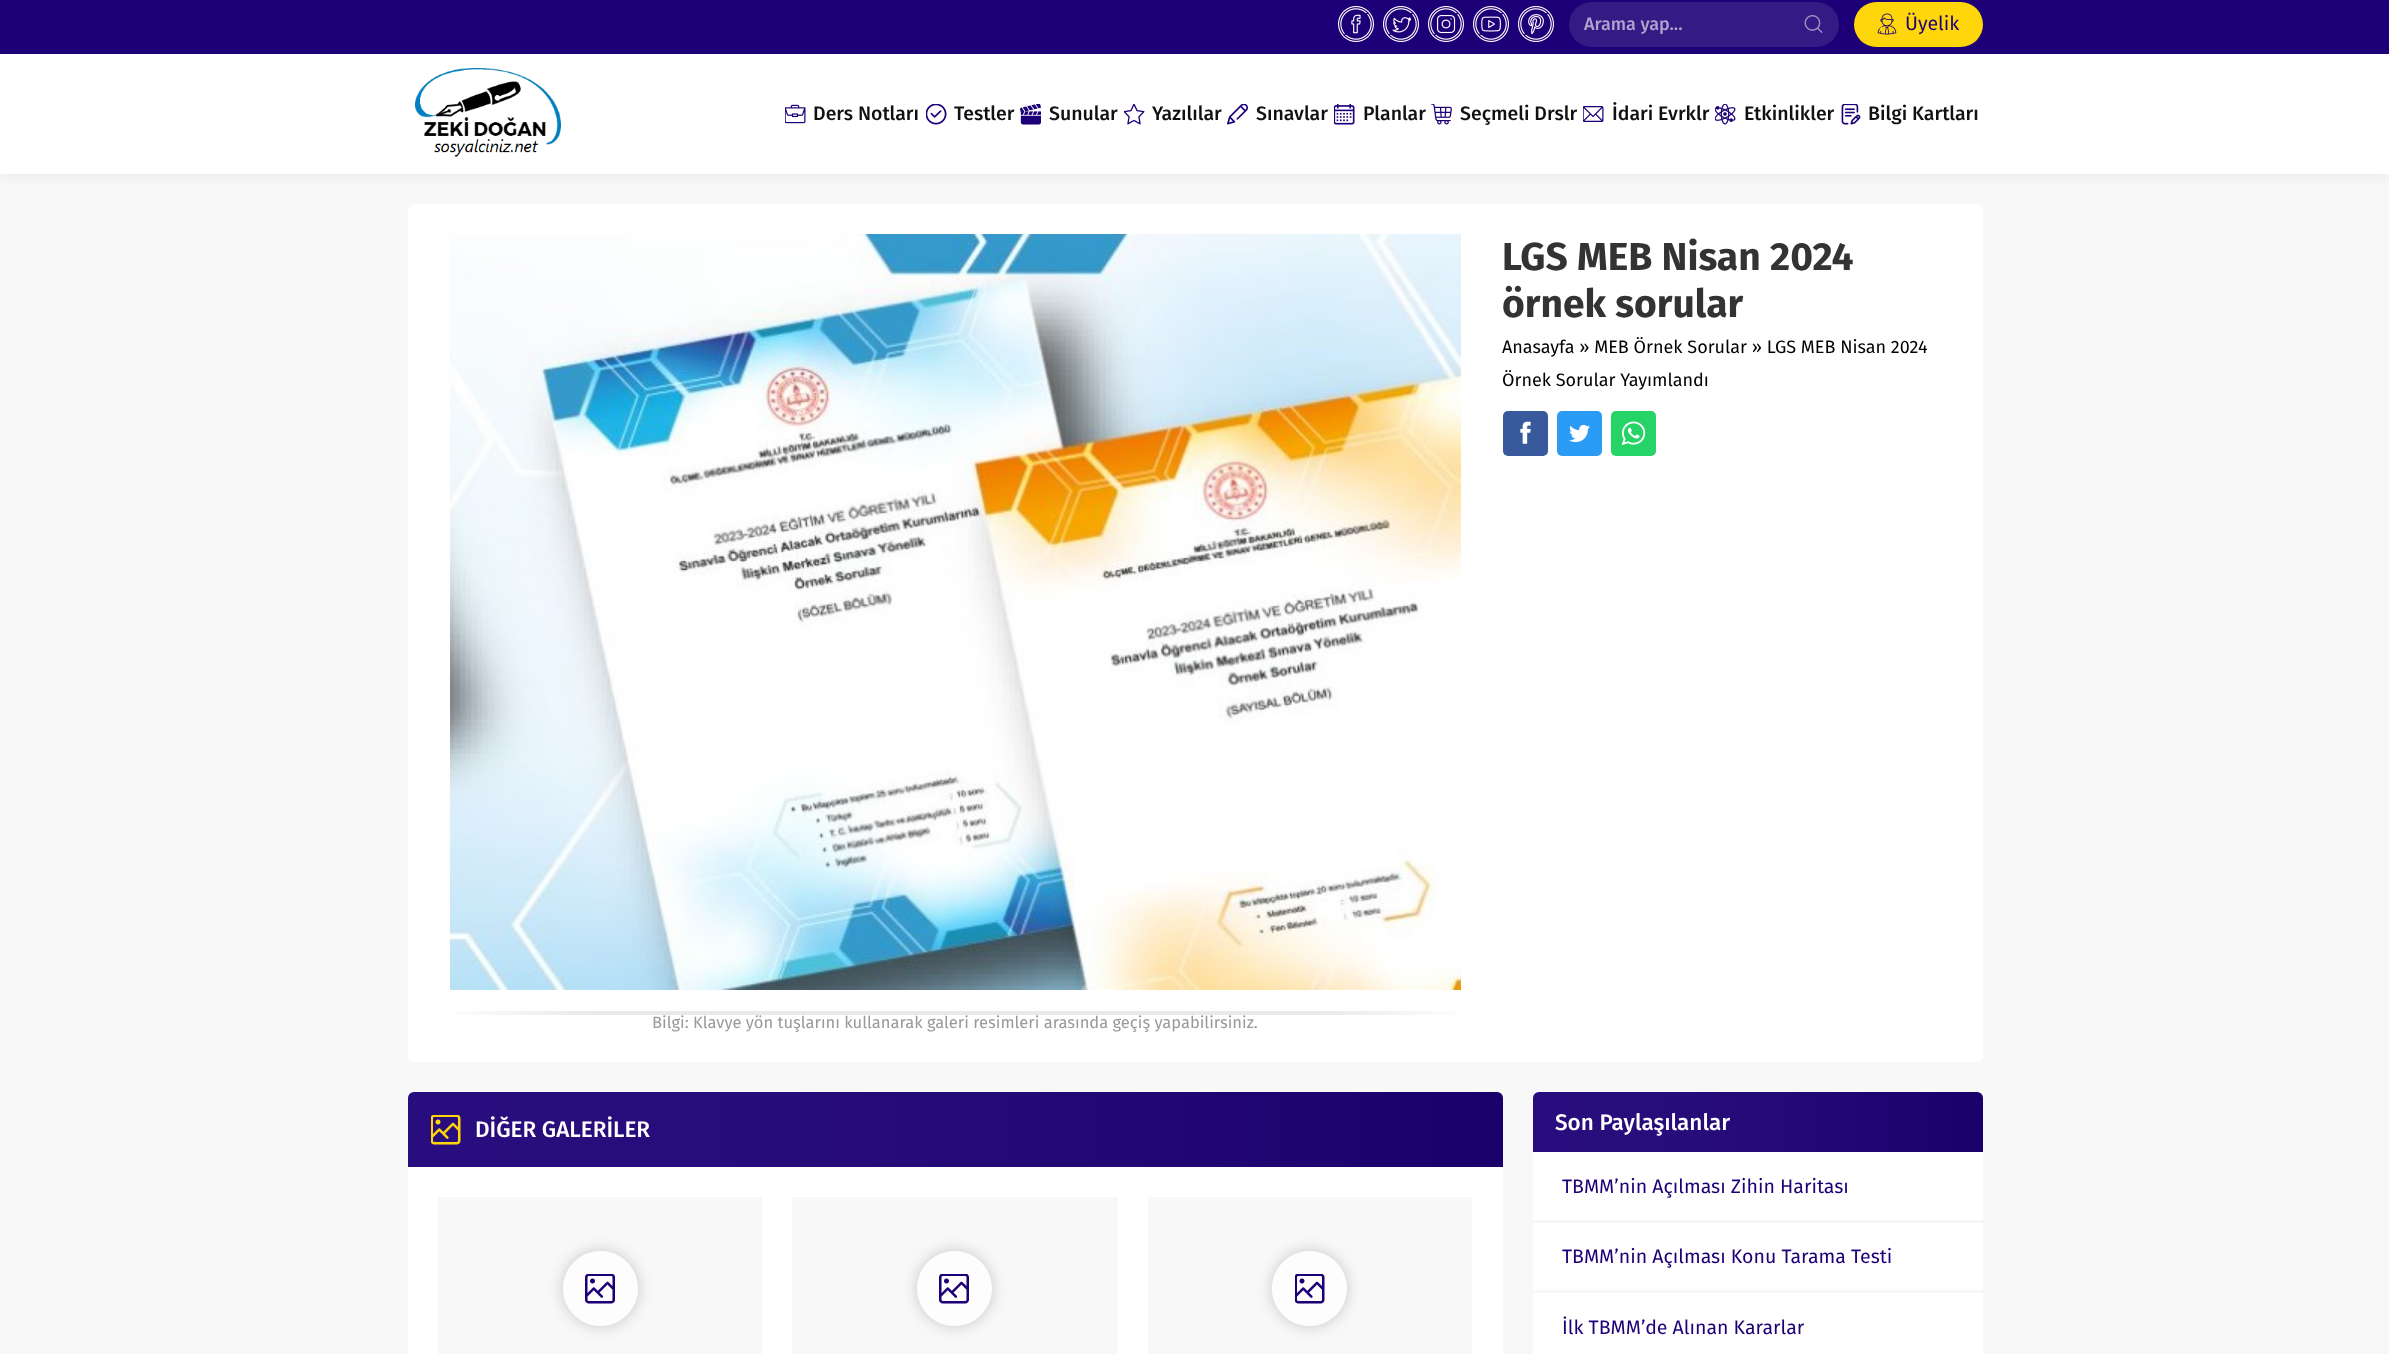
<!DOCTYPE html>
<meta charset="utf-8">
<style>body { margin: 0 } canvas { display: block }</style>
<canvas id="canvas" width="2389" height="1354"></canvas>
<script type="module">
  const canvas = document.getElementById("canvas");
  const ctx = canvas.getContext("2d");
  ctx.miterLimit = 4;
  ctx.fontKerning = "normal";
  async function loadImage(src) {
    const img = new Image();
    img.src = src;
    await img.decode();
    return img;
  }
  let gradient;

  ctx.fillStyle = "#f8f8f8";
  ctx.fillRect(0, 0, 2389, 1354);
  ctx.fillStyle = "rgba(0, 0, 0, 0.05)";
  ctx.filter = "blur(6px)";
  ctx.beginPath();
  ctx.rect(0, -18, 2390, 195);
  ctx.fill();
  ctx.filter = "none";
  ctx.fillStyle = "#ffffff";
  ctx.fillRect(0, 54, 2389, 120);
  ctx.fillStyle = "#1d0077";
  ctx.fillRect(0, 0, 2389, 54);
  ctx.drawImage(await loadImage("img1.png"), 1338, 6, 36, 36);
  ctx.drawImage(await loadImage("img2.png"), 1383, 6, 36, 36);
  ctx.drawImage(await loadImage("img3.png"), 1428, 6, 36, 36);
  ctx.drawImage(await loadImage("img4.png"), 1473, 6, 36, 36);
  ctx.drawImage(await loadImage("img5.png"), 1518, 6, 36, 36);
  ctx.fillStyle = "#341a85";
  ctx.beginPath();
  ctx.roundRect(1569, 2, 270, 45, 22.5);
  ctx.fill();
  ctx.font = "500 18px Fira Sans";
  ctx.fillStyle = "#aea3ce";
  ctx.fillText("Arama yap...", 1584, 30);
  ctx.drawImage(await loadImage("img6.png"), 1804, 15, 19, 18);
  ctx.fillStyle = "#ffd60a";
  ctx.beginPath();
  ctx.roundRect(1854, 2, 129, 45, 22.5);
  ctx.fill();
  ctx.drawImage(await loadImage("img7.png"), 1877, 13, 20, 22);
  ctx.font = "19.5px Fira Sans";
  ctx.fillStyle = "#1d0077";
  ctx.fillText("Üyelik", 1905, 30);
  ctx.drawImage(await loadImage("img8.png"), 415, 68, 146, 89);
  ctx.drawImage(await loadImage("img9.png"), 785, 104, 21, 20);
  ctx.font = "500 19.5px Fira Sans";
  ctx.fillStyle = "#111111";
  ctx.fillText("Ders Notları", 813, 120);
  ctx.drawImage(await loadImage("img10.png"), 926, 104, 21, 21);
  ctx.fillText("Testler", 954, 120);
  ctx.drawImage(await loadImage("img11.png"), 1020, 104, 21, 21);
  ctx.fillText("Sunular", 1049, 120);
  ctx.drawImage(await loadImage("img12.png"), 1124, 104, 21, 21);
  ctx.fillText("Yazılılar", 1152, 120);
  ctx.drawImage(await loadImage("img13.png"), 1227, 104, 21, 21);
  ctx.fillText("Sınavlar", 1256, 120);
  ctx.drawImage(await loadImage("img14.png"), 1334, 104, 21, 21);
  ctx.fillText("Planlar", 1363, 120);
  ctx.drawImage(await loadImage("img15.png"), 1431, 104, 21, 21);
  ctx.fillText("Seçmeli Drslr", 1460, 120);
  ctx.drawImage(await loadImage("img16.png"), 1583, 106, 21, 16);
  ctx.fillText("İdari Evrklr", 1612, 120);
  ctx.drawImage(await loadImage("img17.png"), 1715, 104, 21, 21);
  ctx.fillText("Etkinlikler", 1744, 120);
  ctx.drawImage(await loadImage("img18.png"), 1841, 104, 20, 21);
  ctx.fillText("Bilgi Kartları", 1868, 120);
  ctx.fillStyle = "#ffffff";
  ctx.beginPath();
  ctx.roundRect(408, 204, 1575, 858, 6);
  ctx.fill();
  ctx.font = "bold 39px Fira Sans";
  ctx.fillStyle = "#333333";
  ctx.fillText("LGS MEB Nisan 2024", 1502, 270);
  ctx.fillText("örnek sorular", 1502, 317);
  ctx.font = "18px Fira Sans";
  ctx.fillStyle = "#000000";
  ctx.fillText("Anasayfa » MEB Örnek Sorular » LGS MEB Nisan 2024", 1502, 353);
  ctx.fillText("Örnek Sorular Yayımlandı", 1502, 386);
  ctx.fillStyle = "#38599b";
  ctx.beginPath();
  ctx.roundRect(1503, 411, 45, 45, 5);
  ctx.fill();
  ctx.drawImage(await loadImage("img19.png"), 1520, 421, 11, 23);
  ctx.fillStyle = "#2a9cf6";
  ctx.beginPath();
  ctx.roundRect(1557, 411, 45, 45, 5);
  ctx.fill();
  ctx.drawImage(await loadImage("img20.png"), 1569, 424, 21, 19);
  ctx.fillStyle = "#25d366";
  ctx.beginPath();
  ctx.roundRect(1611, 411, 45, 45, 5);
  ctx.fill();
  ctx.drawImage(await loadImage("img21.png"), 1621, 421, 25, 25);
  ctx.drawImage(await loadImage("img22.png"), 450, 234, 1011, 756);
  gradient = ctx.createLinearGradient(438, 1012, 1473, 1012);
  gradient.addColorStop(0, "#ffffff");
  gradient.addColorStop(0.15, "#e9e9e9");
  gradient.addColorStop(0.85, "#e9e9e9");
  gradient.addColorStop(1, "#ffffff");
  ctx.fillStyle = gradient;
  ctx.fillRect(456, 1011, 999, 2);
  gradient = ctx.createLinearGradient(438, 1013, 1473, 1013);
  gradient.addColorStop(0, "#ffffff");
  gradient.addColorStop(0.15, "#e9e9e9");
  gradient.addColorStop(0.85, "#e9e9e9");
  gradient.addColorStop(1, "#ffffff");
  ctx.fillStyle = gradient;
  ctx.fillRect(456, 1013, 999, 2);
  ctx.font = "16.5px Fira Sans";
  ctx.fillStyle = "#999999";
  ctx.fillText("Bilgi: Klavye yön tuşlarını kullanarak galeri resimleri arasında geçiş yapabilirsiniz.", 652, 1028);
  ctx.fillStyle = "#1d0077";
  ctx.beginPath();
  ctx.roundRect(408, 1092, 1095, 75, [6, 6, 0, 0]);
  ctx.fill();
  gradient = ctx.createLinearGradient(408, 1130, 1503, 1130);
  gradient.addColorStop(0, "rgba(255, 255, 255, 0.05)");
  gradient.addColorStop(1, "rgba(0, 0, 0, 0.1)");
  ctx.fillStyle = gradient;
  ctx.beginPath();
  ctx.roundRect(408, 1092, 1095, 75, [6, 6, 0, 0]);
  ctx.fill();
  ctx.drawImage(await loadImage("img23.png"), 431, 1115, 30, 30);
  ctx.font = "500 22.5px Fira Sans";
  ctx.fillStyle = "#ffffff";
  ctx.fillText("DİĞER GALERİLER", 475, 1137);
  ctx.fillRect(408, 1167, 1095, 187);
  ctx.fillStyle = "#f8f8f8";
  ctx.fillRect(438, 1197, 324, 157);
  ctx.save();
  ctx.beginPath();
  ctx.moveTo(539, 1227);
  ctx.lineTo(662, 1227);
  ctx.lineTo(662, 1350);
  ctx.lineTo(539, 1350);
  ctx.closePath();
  ctx.moveTo(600.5, 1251);
  ctx.bezierCurveTo(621, 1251, 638, 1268, 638, 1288.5);
  ctx.bezierCurveTo(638, 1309, 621, 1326, 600.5, 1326);
  ctx.bezierCurveTo(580, 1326, 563, 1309, 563, 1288.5);
  ctx.bezierCurveTo(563, 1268, 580, 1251, 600.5, 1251);
  ctx.closePath();
  ctx.clip("evenodd");
  ctx.fillStyle = "rgba(0, 0, 0, 0.2)";
  ctx.filter = "blur(7.5px)";
  ctx.beginPath();
  ctx.roundRect(563, 1251, 75, 75, 37.5);
  ctx.fill();
  ctx.filter = "none";
  ctx.restore();
  ctx.fillStyle = "rgba(255, 255, 255, 0.75)";
  ctx.beginPath();
  ctx.arc(600.5, 1288.5, 37.5, 0, Math.PI * 2);
  ctx.fill();
  ctx.drawImage(await loadImage("img24.png"), 585, 1274, 30, 30);
  ctx.fillStyle = "#f8f8f8";
  ctx.fillRect(792, 1197, 326, 157);
  ctx.save();
  ctx.beginPath();
  ctx.moveTo(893, 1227);
  ctx.lineTo(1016, 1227);
  ctx.lineTo(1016, 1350);
  ctx.lineTo(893, 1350);
  ctx.closePath();
  ctx.moveTo(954.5, 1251);
  ctx.bezierCurveTo(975, 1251, 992, 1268, 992, 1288.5);
  ctx.bezierCurveTo(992, 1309, 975, 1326, 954.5, 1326);
  ctx.bezierCurveTo(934, 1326, 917, 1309, 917, 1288.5);
  ctx.bezierCurveTo(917, 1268, 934, 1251, 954.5, 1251);
  ctx.closePath();
  ctx.clip("evenodd");
  ctx.fillStyle = "rgba(0, 0, 0, 0.2)";
  ctx.filter = "blur(7.5px)";
  ctx.beginPath();
  ctx.roundRect(917, 1251, 75, 75, 37.5);
  ctx.fill();
  ctx.filter = "none";
  ctx.restore();
  ctx.fillStyle = "rgba(255, 255, 255, 0.75)";
  ctx.beginPath();
  ctx.arc(954.5, 1288.5, 37.5, 0, Math.PI * 2);
  ctx.fill();
  ctx.drawImage(await loadImage("img24.png"), 939, 1274, 30, 30);
  ctx.fillStyle = "#f8f8f8";
  ctx.fillRect(1148, 1197, 324, 157);
  ctx.save();
  ctx.beginPath();
  ctx.moveTo(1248, 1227);
  ctx.lineTo(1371, 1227);
  ctx.lineTo(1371, 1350);
  ctx.lineTo(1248, 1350);
  ctx.closePath();
  ctx.moveTo(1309.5, 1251);
  ctx.bezierCurveTo(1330, 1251, 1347, 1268, 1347, 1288.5);
  ctx.bezierCurveTo(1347, 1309, 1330, 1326, 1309.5, 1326);
  ctx.bezierCurveTo(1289, 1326, 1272, 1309, 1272, 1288.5);
  ctx.bezierCurveTo(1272, 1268, 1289, 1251, 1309.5, 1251);
  ctx.closePath();
  ctx.clip("evenodd");
  ctx.fillStyle = "rgba(0, 0, 0, 0.2)";
  ctx.filter = "blur(7.5px)";
  ctx.beginPath();
  ctx.roundRect(1272, 1251, 75, 75, 37.5);
  ctx.fill();
  ctx.filter = "none";
  ctx.restore();
  ctx.fillStyle = "rgba(255, 255, 255, 0.75)";
  ctx.beginPath();
  ctx.arc(1309.5, 1288.5, 37.5, 0, Math.PI * 2);
  ctx.fill();
  ctx.drawImage(await loadImage("img25.png"), 1295, 1274, 30, 30);
  ctx.fillStyle = "#ffffff";
  ctx.beginPath();
  ctx.roundRect(1533, 1092, 450, 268, 6);
  ctx.fill();
  ctx.fillStyle = "#1d0077";
  ctx.beginPath();
  ctx.roundRect(1533, 1092, 450, 60, [6, 6, 0, 0]);
  ctx.fill();
  gradient = ctx.createLinearGradient(1533, 1122, 1983, 1122);
  gradient.addColorStop(0, "rgba(255, 255, 255, 0.05)");
  gradient.addColorStop(1, "rgba(0, 0, 0, 0.1)");
  ctx.fillStyle = gradient;
  ctx.beginPath();
  ctx.roundRect(1533, 1092, 450, 60, [6, 6, 0, 0]);
  ctx.fill();
  ctx.fillStyle = "#ffffff";
  ctx.fillText("Son Paylaşılanlar", 1555, 1130);
  ctx.font = "19.5px Fira Sans";
  ctx.fillStyle = "#1d0077";
  ctx.fillText("TBMM’nin Açılması Zihin Haritası", 1562, 1193);
  ctx.fillStyle = "#f7f7f7";
  ctx.fillRect(1533, 1220, 450, 3);
  ctx.fillStyle = "#1d0077";
  ctx.fillText("TBMM’nin Açılması Konu Tarama Testi", 1562, 1263);
  ctx.fillStyle = "#f7f7f7";
  ctx.fillRect(1533, 1290, 450, 3);
  ctx.fillStyle = "#1d0077";
  ctx.fillText("İlk TBMM’de Alınan Kararlar", 1562, 1334);
</script>
